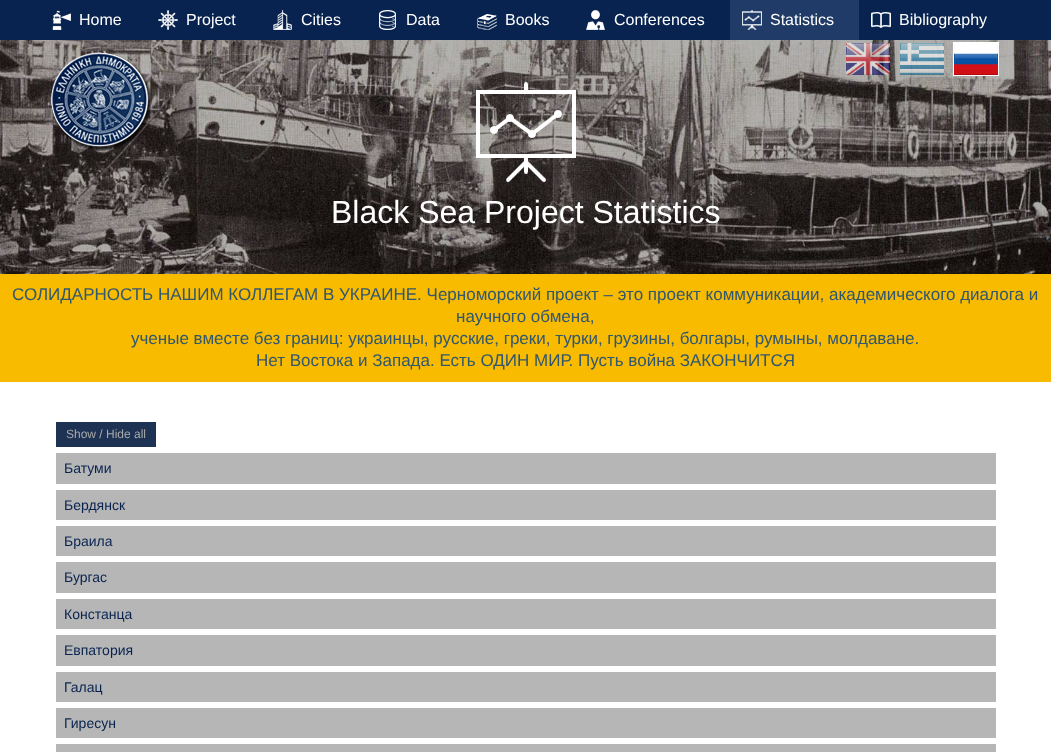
<!DOCTYPE html>
<meta charset="utf-8">
<style>body { margin: 0 } canvas { display: block }</style>
<canvas id="canvas" width="1051" height="752"></canvas>
<script type="module">
  const canvas = document.getElementById("canvas");
  const ctx = canvas.getContext("2d");
  ctx.miterLimit = 4;
  ctx.fontKerning = "normal";
  async function loadImage(src) {
    const img = new Image();
    img.src = src;
    await img.decode();
    return img;
  }

  ctx.fillStyle = "#ffffff";
  ctx.fillRect(0, 0, 1051, 752);
  ctx.fillStyle = "#08234f";
  ctx.fillRect(0, 0, 1051, 40);
  ctx.drawImage(await loadImage("img1.png"), 52, 10, 19, 20);
  ctx.font = "16px Liberation Sans";
  ctx.fillStyle = "#ffffff";
  ctx.fillText("Home", 79, 25);
  ctx.drawImage(await loadImage("img2.png"), 158, 10, 20, 20);
  ctx.fillText("Project", 186, 25);
  ctx.drawImage(await loadImage("img3.png"), 273, 10, 19, 20);
  ctx.fillText("Cities", 301, 25);
  ctx.drawImage(await loadImage("img4.png"), 379, 10, 17, 20);
  ctx.fillText("Data", 406, 25);
  ctx.drawImage(await loadImage("img5.png"), 477, 14, 20, 16);
  ctx.fillText("Books", 505, 25);
  ctx.drawImage(await loadImage("img6.png"), 586, 10, 19, 20);
  ctx.fillText("Conferences", 614, 25);
  ctx.fillStyle = "#203b67";
  ctx.fillRect(730, 0, 129, 40);
  ctx.drawImage(await loadImage("img7.png"), 742, 10, 20, 20);
  ctx.fillStyle = "#ffffff";
  ctx.fillText("Statistics", 770, 25);
  ctx.drawImage(await loadImage("img8.png"), 871, 12, 20, 16);
  ctx.fillText("Bibliography", 899, 25);
  ctx.drawImage(await loadImage("img9.png"), 0, 40, 1051, 234);
  ctx.drawImage(await loadImage("img10.png"), 51, 52, 101, 99);
  ctx.drawImage(await loadImage("img11.png"), 846, 43, 44, 32);
  ctx.drawImage(await loadImage("img12.png"), 900, 43, 44, 32);
  ctx.strokeStyle = "#ffffff";
  ctx.strokeRect(953.5, 42.5, 45, 33);
  ctx.drawImage(await loadImage("img13.png"), 954, 43, 44, 32);
  ctx.drawImage(await loadImage("img14.png"), 476, 82, 100, 100);
  ctx.font = "32px Liberation Sans";
  ctx.fillText("Black Sea Project Statistics", 331, 223);
  ctx.fillStyle = "#f8bb00";
  ctx.fillRect(0, 274, 1051, 108);
  ctx.font = "17px Liberation Sans";
  ctx.fillStyle = "#31576f";
  ctx.fillText("СОЛИДАРНОСТЬ НАШИМ КОЛЛЕГАМ В УКРАИНЕ. Черноморский проект – это проект коммуникации, академического диалога и", 12, 300);
  ctx.fillText("научного обмена,", 456, 322);
  ctx.fillText("ученые вместе без границ: украинцы, русские, греки, турки, грузины, болгары, румыны, молдаване.", 131, 344);
  ctx.fillText("Нет Востока и Запада. Есть ОДИН МИР. Пусть война ЗАКОНЧИТСЯ", 256, 366);
  ctx.fillStyle = "#1e3354";
  ctx.fillRect(56, 422, 100, 25);
  ctx.font = "12px Liberation Sans";
  ctx.fillStyle = "#aaaaaa";
  ctx.fillText("Show / Hide all", 66, 438);
  ctx.fillStyle = "#b6b6b6";
  ctx.fillRect(56, 453, 940, 31);
  ctx.font = "14px Liberation Sans";
  ctx.fillStyle = "#08234f";
  ctx.fillText("Батуми", 64, 473);
  ctx.fillStyle = "#b6b6b6";
  ctx.fillRect(56, 490, 940, 30);
  ctx.fillStyle = "#08234f";
  ctx.fillText("Бердянск", 64, 510);
  ctx.fillStyle = "#b6b6b6";
  ctx.fillRect(56, 526, 940, 30);
  ctx.fillStyle = "#08234f";
  ctx.fillText("Браила", 64, 546);
  ctx.fillStyle = "#b6b6b6";
  ctx.fillRect(56, 562, 940, 31);
  ctx.fillStyle = "#08234f";
  ctx.fillText("Бургас", 64, 582);
  ctx.fillStyle = "#b6b6b6";
  ctx.fillRect(56, 599, 940, 30);
  ctx.fillStyle = "#08234f";
  ctx.fillText("Констанца", 64, 619);
  ctx.fillStyle = "#b6b6b6";
  ctx.fillRect(56, 635, 940, 31);
  ctx.fillStyle = "#08234f";
  ctx.fillText("Евпатория", 64, 655);
  ctx.fillStyle = "#b6b6b6";
  ctx.fillRect(56, 672, 940, 30);
  ctx.fillStyle = "#08234f";
  ctx.fillText("Галац", 64, 692);
  ctx.fillStyle = "#b6b6b6";
  ctx.fillRect(56, 708, 940, 30);
  ctx.fillStyle = "#08234f";
  ctx.fillText("Гиресун", 64, 728);
  ctx.fillStyle = "#b6b6b6";
  ctx.fillRect(56, 744, 940, 8);
</script>
